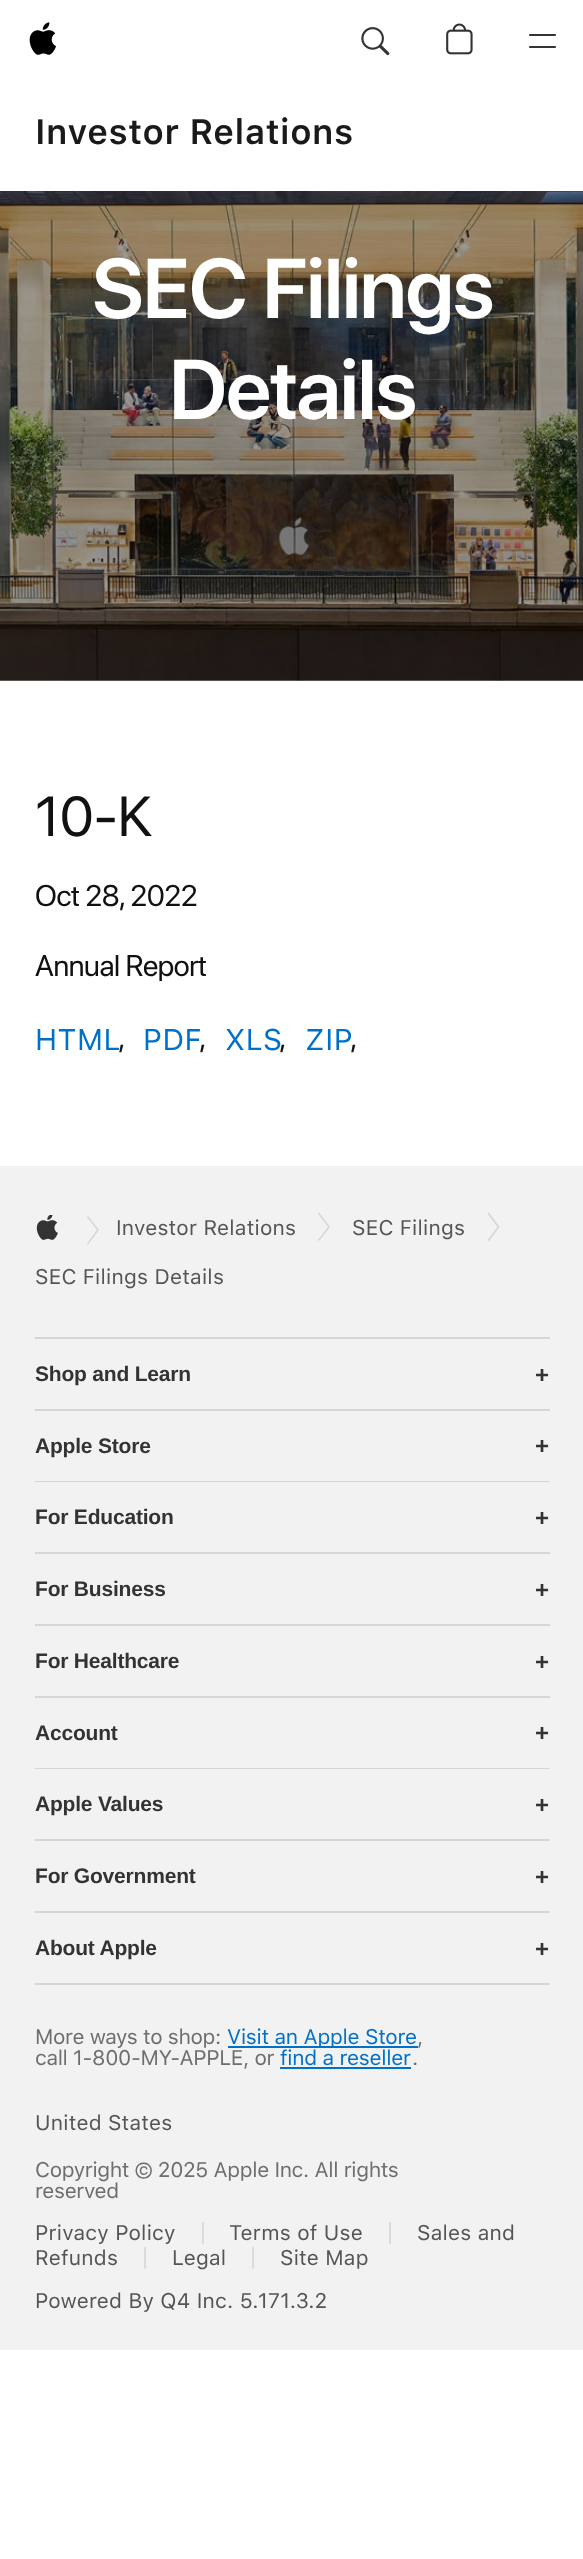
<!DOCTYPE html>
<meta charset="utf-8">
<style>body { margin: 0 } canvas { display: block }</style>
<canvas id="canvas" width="583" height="2559"></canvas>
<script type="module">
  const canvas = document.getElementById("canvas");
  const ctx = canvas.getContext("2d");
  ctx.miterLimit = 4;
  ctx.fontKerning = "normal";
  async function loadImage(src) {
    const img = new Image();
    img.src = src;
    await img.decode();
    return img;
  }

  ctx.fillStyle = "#ffffff";
  ctx.fillRect(0, 0, 583, 2559);
  ctx.drawImage(await loadImage("img1.png"), 29, 22, 27, 33);
  ctx.drawImage(await loadImage("img2.png"), 361, 27, 29, 29);
  ctx.drawImage(await loadImage("img3.png"), 446, 23, 27, 32);
  ctx.beginPath();
  ctx.moveTo(530, 47);
  ctx.lineTo(555, 47);
  ctx.moveTo(530, 35);
  ctx.lineTo(555, 35);
  ctx.strokeStyle = "#333333";
  ctx.lineWidth = 2.1;
  ctx.lineCap = "round";
  ctx.lineJoin = "round";
  ctx.stroke();
  ctx.letterSpacing = "0.6px";
  ctx.font = "600 35px SF Pro Text";
  ctx.fillStyle = "#1a1a1a";
  ctx.fillText("Investor Relations", 35, 144);
  ctx.drawImage(await loadImage("img4.png"), 0, 191, 583, 490);
  ctx.letterSpacing = "-1.25px";
  ctx.font = "600 84px SF Pro Display";
  ctx.fillStyle = "#ffffff";
  ctx.fillText("SEC Filings", 92, 318);
  ctx.fillText("Details", 169, 419);
  ctx.letterSpacing = "0px";
  ctx.font = "56px SF Pro Display";
  ctx.fillStyle = "#111111";
  ctx.fillText("10-K", 35, 836);
  ctx.letterSpacing = "-0.35px";
  ctx.font = "29.75px SF Pro Display";
  ctx.fillText("Oct 28, 2022", 35, 906);
  ctx.fillText("Annual Report", 35, 976);
  ctx.letterSpacing = "0.5px";
  ctx.font = "29.75px SF Pro Text";
  ctx.fillStyle = "#0070c9";
  ctx.fillText("HTML", 35, 1050);
  ctx.letterSpacing = "-0.35px";
  ctx.font = "29.75px SF Pro Display";
  ctx.fillStyle = "#111111";
  ctx.fillText(",", 118, 1048);
  ctx.letterSpacing = "0.5px";
  ctx.font = "29.75px SF Pro Text";
  ctx.fillStyle = "#0070c9";
  ctx.fillText("PDF", 143, 1050);
  ctx.letterSpacing = "-0.35px";
  ctx.font = "29.75px SF Pro Display";
  ctx.fillStyle = "#111111";
  ctx.fillText(",", 199, 1048);
  ctx.letterSpacing = "0.5px";
  ctx.font = "29.75px SF Pro Text";
  ctx.fillStyle = "#0070c9";
  ctx.fillText("XLS", 225, 1050);
  ctx.letterSpacing = "-0.35px";
  ctx.font = "29.75px SF Pro Display";
  ctx.fillStyle = "#111111";
  ctx.fillText(",", 279, 1048);
  ctx.letterSpacing = "0.5px";
  ctx.font = "29.75px SF Pro Text";
  ctx.fillStyle = "#0070c9";
  ctx.fillText("ZIP", 305, 1050);
  ctx.letterSpacing = "-0.35px";
  ctx.font = "29.75px SF Pro Display";
  ctx.fillStyle = "#111111";
  ctx.fillText(",", 350, 1048);
  ctx.fillStyle = "#f2f2f2";
  ctx.fillRect(0, 1166, 583, 1184);
  ctx.drawImage(await loadImage("img5.png"), 36, 1215, 22, 25);
  ctx.fillStyle = "#d6d6d6";
  ctx.beginPath();
  ctx.moveTo(88, 1216);
  ctx.lineTo(99, 1230);
  ctx.lineTo(88, 1244.5);
  ctx.lineTo(87, 1243.5);
  ctx.lineTo(97, 1230);
  ctx.lineTo(87, 1217);
  ctx.closePath();
  ctx.fill();
  ctx.letterSpacing = "0.25px";
  ctx.font = "21px SF Pro Text";
  ctx.fillStyle = "#555555";
  ctx.fillText("Investor Relations", 116, 1235);
  ctx.fillStyle = "#d6d6d6";
  ctx.beginPath();
  ctx.moveTo(319, 1212.5);
  ctx.lineTo(330, 1227);
  ctx.lineTo(319, 1241);
  ctx.lineTo(318, 1240);
  ctx.lineTo(328, 1227);
  ctx.lineTo(318, 1213.5);
  ctx.closePath();
  ctx.fill();
  ctx.fillStyle = "#555555";
  ctx.fillText("SEC Filings", 352, 1235);
  ctx.fillStyle = "#d6d6d6";
  ctx.beginPath();
  ctx.moveTo(489, 1212.5);
  ctx.lineTo(499.5, 1227);
  ctx.lineTo(489, 1241);
  ctx.lineTo(487.5, 1240);
  ctx.lineTo(497.5, 1227);
  ctx.lineTo(487.5, 1213.5);
  ctx.closePath();
  ctx.fill();
  ctx.fillStyle = "#555555";
  ctx.fillText("SEC Filings Details", 35, 1284);
  ctx.fillStyle = "#d6d6d6";
  ctx.fillRect(35, 1337, 515, 2);
  ctx.fillRect(35, 1409, 515, 2);
  ctx.letterSpacing = "-0.2px";
  ctx.font = "bold 21px Liberation Sans";
  ctx.fillStyle = "#333333";
  ctx.fillText("Shop and Learn", 35, 1381);
  ctx.font = "bold 24px Liberation Sans";
  ctx.fillText("+", 535, 1383);
  ctx.fillStyle = "#d6d6d6";
  ctx.fillRect(35, 1481, 515, 1);
  ctx.font = "bold 21px Liberation Sans";
  ctx.fillStyle = "#333333";
  ctx.fillText("Apple Store", 35, 1453);
  ctx.font = "bold 24px Liberation Sans";
  ctx.fillText("+", 535, 1454);
  ctx.fillStyle = "#d6d6d6";
  ctx.fillRect(35, 1552, 515, 2);
  ctx.font = "bold 21px Liberation Sans";
  ctx.fillStyle = "#333333";
  ctx.fillText("For Education", 35, 1524);
  ctx.font = "bold 24px Liberation Sans";
  ctx.fillText("+", 535, 1526);
  ctx.fillStyle = "#d6d6d6";
  ctx.fillRect(35, 1624, 515, 2);
  ctx.font = "bold 21px Liberation Sans";
  ctx.fillStyle = "#333333";
  ctx.fillText("For Business", 35, 1596);
  ctx.font = "bold 24px Liberation Sans";
  ctx.fillText("+", 535, 1598);
  ctx.fillStyle = "#d6d6d6";
  ctx.fillRect(35, 1696, 515, 2);
  ctx.font = "bold 21px Liberation Sans";
  ctx.fillStyle = "#333333";
  ctx.fillText("For Healthcare", 35, 1668);
  ctx.font = "bold 24px Liberation Sans";
  ctx.fillText("+", 535, 1670);
  ctx.fillStyle = "#d6d6d6";
  ctx.fillRect(35, 1768, 515, 1);
  ctx.font = "bold 21px Liberation Sans";
  ctx.fillStyle = "#333333";
  ctx.fillText("Account", 35, 1740);
  ctx.font = "bold 24px Liberation Sans";
  ctx.fillText("+", 535, 1741);
  ctx.fillStyle = "#d6d6d6";
  ctx.fillRect(35, 1839, 515, 2);
  ctx.font = "bold 21px Liberation Sans";
  ctx.fillStyle = "#333333";
  ctx.fillText("Apple Values", 35, 1811);
  ctx.font = "bold 24px Liberation Sans";
  ctx.fillText("+", 535, 1813);
  ctx.fillStyle = "#d6d6d6";
  ctx.fillRect(35, 1911, 515, 2);
  ctx.font = "bold 21px Liberation Sans";
  ctx.fillStyle = "#333333";
  ctx.fillText("For Government", 35, 1883);
  ctx.font = "bold 24px Liberation Sans";
  ctx.fillText("+", 535, 1885);
  ctx.fillStyle = "#d6d6d6";
  ctx.fillRect(35, 1983, 515, 2);
  ctx.font = "bold 21px Liberation Sans";
  ctx.fillStyle = "#333333";
  ctx.fillText("About Apple", 35, 1955);
  ctx.font = "bold 24px Liberation Sans";
  ctx.fillText("+", 535, 1957);
  ctx.letterSpacing = "-0.35px";
  ctx.font = "21px SF Pro Text";
  ctx.fillStyle = "#6e6e6e";
  ctx.fillText("More ways to shop:", 35, 2044);
  ctx.fillStyle = "#0070c9";
  ctx.fillRect(228, 2046, 190, 2);
  ctx.letterSpacing = "-0.25px";
  ctx.fillText("Visit an Apple Store", 227, 2044);
  ctx.letterSpacing = "-0.35px";
  ctx.fillStyle = "#6e6e6e";
  ctx.fillText(",", 417, 2044);
  ctx.fillText("call 1-800-MY-APPLE, or", 35, 2065);
  ctx.letterSpacing = "-0.25px";
  ctx.fillStyle = "#0070c9";
  ctx.fillText("find a reseller", 280, 2065);
  ctx.fillRect(280, 2067, 131, 2);
  ctx.letterSpacing = "-0.35px";
  ctx.fillStyle = "#6e6e6e";
  ctx.fillText(".", 412, 2065);
  ctx.letterSpacing = "0.25px";
  ctx.fillStyle = "#555555";
  ctx.fillText("United States", 35, 2130);
  ctx.letterSpacing = "-0.35px";
  ctx.fillStyle = "#6e6e6e";
  ctx.fillText("Copyright © 2025 Apple Inc. All rights", 35, 2177);
  ctx.fillText("reserved", 35, 2198);
  ctx.letterSpacing = "0.25px";
  ctx.fillStyle = "#555555";
  ctx.fillText("Privacy Policy", 35, 2240);
  ctx.letterSpacing = "-0.35px";
  ctx.font = "24px SF Pro Text";
  ctx.fillStyle = "#d6d6d6";
  ctx.fillText("|", 199, 2240);
  ctx.letterSpacing = "0.25px";
  ctx.font = "21px SF Pro Text";
  ctx.fillStyle = "#555555";
  ctx.fillText("Terms of Use", 229, 2240);
  ctx.letterSpacing = "-0.35px";
  ctx.font = "24px SF Pro Text";
  ctx.fillStyle = "#d6d6d6";
  ctx.fillText("|", 386, 2240);
  ctx.letterSpacing = "0.25px";
  ctx.font = "21px SF Pro Text";
  ctx.fillStyle = "#555555";
  ctx.fillText("Sales and", 417, 2240);
  ctx.fillText("Refunds", 35, 2265);
  ctx.letterSpacing = "-0.35px";
  ctx.font = "24px SF Pro Text";
  ctx.fillStyle = "#d6d6d6";
  ctx.fillText("|", 141, 2265);
  ctx.letterSpacing = "0.25px";
  ctx.font = "21px SF Pro Text";
  ctx.fillStyle = "#555555";
  ctx.fillText("Legal", 172, 2265);
  ctx.letterSpacing = "-0.35px";
  ctx.font = "24px SF Pro Text";
  ctx.fillStyle = "#d6d6d6";
  ctx.fillText("|", 249, 2265);
  ctx.letterSpacing = "0.25px";
  ctx.font = "21px SF Pro Text";
  ctx.fillStyle = "#555555";
  ctx.fillText("Site Map", 280, 2265);
  ctx.fillText("Powered By Q4 Inc. 5.171.3.2", 35, 2308);
</script>
